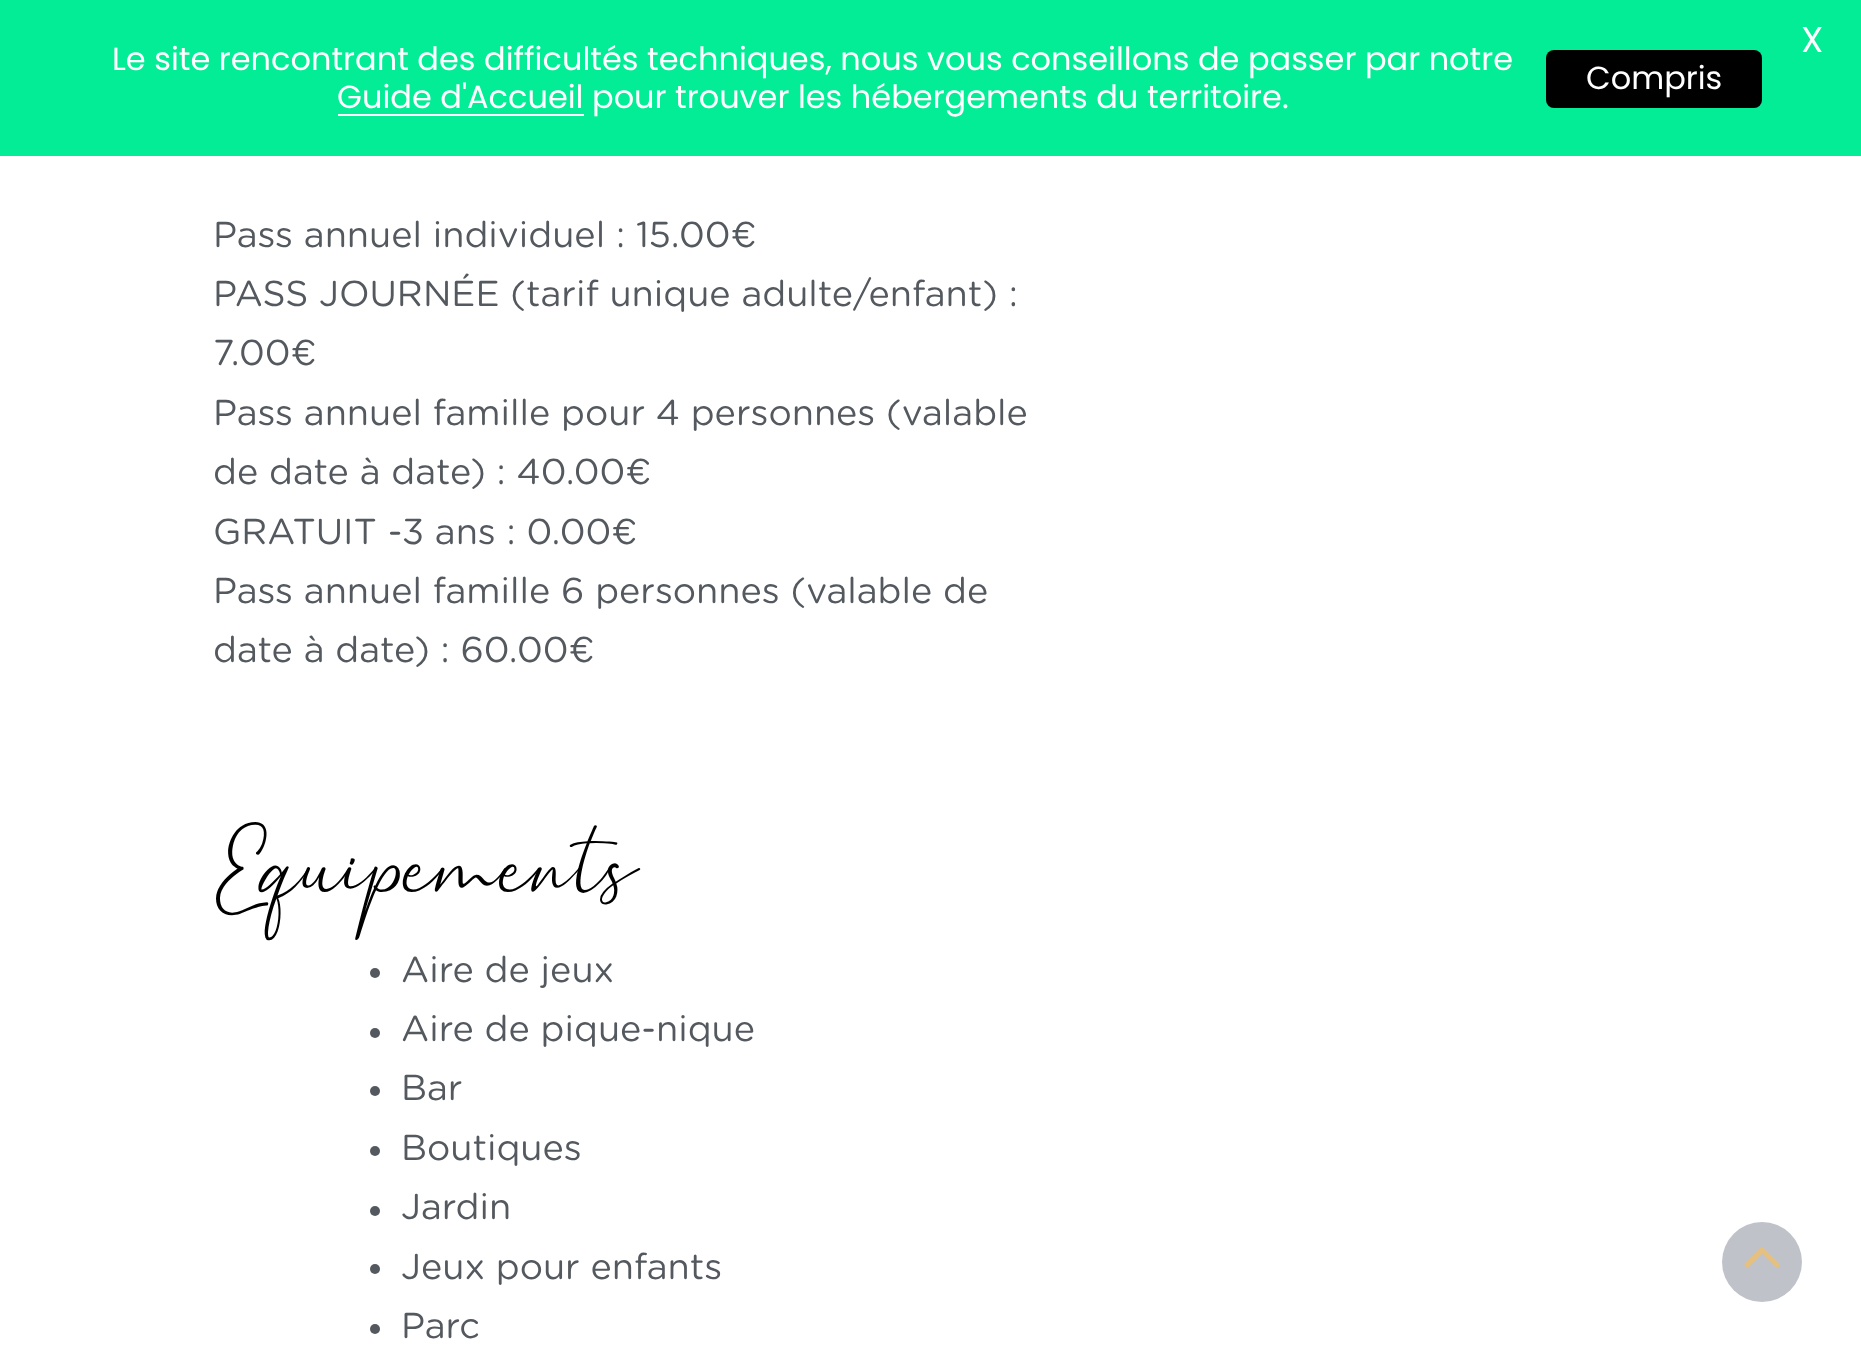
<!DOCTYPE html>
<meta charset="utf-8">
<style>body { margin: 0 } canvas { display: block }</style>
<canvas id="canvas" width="1861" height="1362"></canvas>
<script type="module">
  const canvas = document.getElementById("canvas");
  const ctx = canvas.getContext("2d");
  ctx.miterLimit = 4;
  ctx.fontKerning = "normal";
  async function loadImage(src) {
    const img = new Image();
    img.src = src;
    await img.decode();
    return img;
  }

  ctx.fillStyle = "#ffffff";
  ctx.fillRect(0, 0, 1861, 1362);
  ctx.fillStyle = "#03ed96";
  ctx.fillRect(0, 0, 1861, 156);
  ctx.font = "36px Poppins";
  ctx.fillStyle = "#ffffff";
  ctx.fillText("X", 1801, 52);
  ctx.font = "32px Poppins";
  ctx.fillText("Le site rencontrant des difficultés techniques, nous vous conseillons de passer par notre", 112, 70);
  ctx.fillRect(338, 114, 246, 2);
  ctx.fillText("Guide d'Accueil pour trouver les hébergements du territoire.", 337, 108);
  ctx.fillStyle = "#000000";
  ctx.beginPath();
  ctx.roundRect(1546, 50, 216, 58, 8);
  ctx.fill();
  ctx.fillStyle = "#ffffff";
  ctx.fillText("Compris", 1586, 89);
  ctx.font = "36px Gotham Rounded";
  ctx.fillStyle = "#54595f";
  ctx.fillText("Pass annuel individuel : 15.00€", 213, 247);
  ctx.fillText("PASS JOURNÉE (tarif unique adulte/enfant) :", 213, 306);
  ctx.fillText("7.00€", 213, 365);
  ctx.fillText("Pass annuel famille pour 4 personnes (valable", 213, 425);
  ctx.fillText("de date à date) : 40.00€", 213, 484);
  ctx.fillText("GRATUIT -3 ans : 0.00€", 213, 544);
  ctx.fillText("Pass annuel famille 6 personnes (valable de", 213, 603);
  ctx.fillText("date à date) : 60.00€", 213, 662);
  ctx.font = "60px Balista";
  ctx.fillStyle = "#000000";
  ctx.fillText("Equipements", 213, 890);
  ctx.fillStyle = "#54595f";
  ctx.beginPath();
  ctx.arc(375, 973, 5, 0, Math.PI * 2);
  ctx.fill();
  ctx.font = "36px Gotham Rounded";
  ctx.fillText("Aire de jeux", 401, 982);
  ctx.beginPath();
  ctx.arc(375, 1033, 5, 0, Math.PI * 2);
  ctx.fill();
  ctx.fillText("Aire de pique-nique", 401, 1041);
  ctx.beginPath();
  ctx.arc(375, 1091, 5, 0, Math.PI * 2);
  ctx.fill();
  ctx.fillText("Bar", 401, 1100);
  ctx.beginPath();
  ctx.arc(375, 1151, 5, 0, Math.PI * 2);
  ctx.fill();
  ctx.fillText("Boutiques", 401, 1160);
  ctx.beginPath();
  ctx.arc(375, 1211, 5, 0, Math.PI * 2);
  ctx.fill();
  ctx.fillText("Jardin", 401, 1219);
  ctx.beginPath();
  ctx.arc(375, 1269, 5, 0, Math.PI * 2);
  ctx.fill();
  ctx.fillText("Jeux pour enfants", 401, 1279);
  ctx.beginPath();
  ctx.arc(375, 1329, 5, 0, Math.PI * 2);
  ctx.fill();
  ctx.fillText("Parc", 401, 1338);
  ctx.fillStyle = "#c0c2c9";
  ctx.beginPath();
  ctx.arc(1762, 1262, 40, 0, Math.PI * 2);
  ctx.fill();
  ctx.drawImage(await loadImage("img1.png"), 1744, 1247, 36, 21);
</script>
